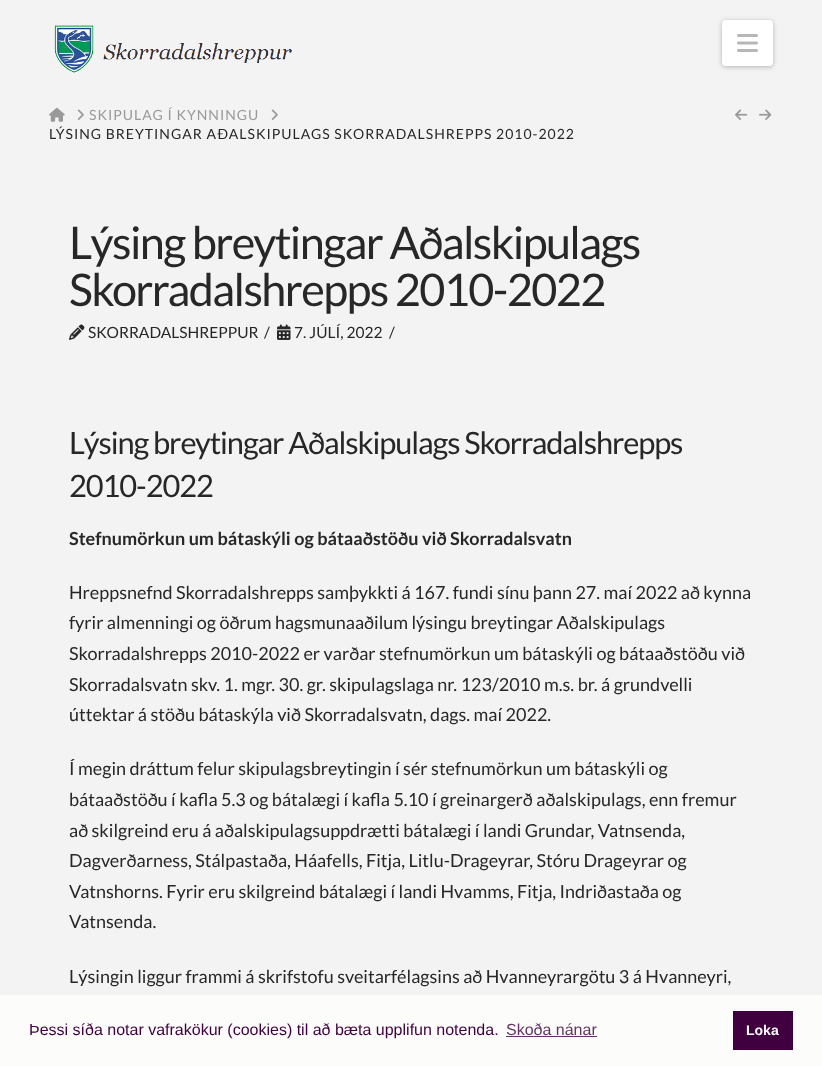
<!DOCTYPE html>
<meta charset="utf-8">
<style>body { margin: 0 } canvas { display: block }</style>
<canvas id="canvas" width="822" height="1066"></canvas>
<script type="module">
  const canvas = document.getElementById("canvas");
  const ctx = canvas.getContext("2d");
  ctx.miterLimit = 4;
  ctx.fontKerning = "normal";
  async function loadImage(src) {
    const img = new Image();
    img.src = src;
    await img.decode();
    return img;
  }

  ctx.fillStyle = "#f3f3f3";
  ctx.fillRect(0, 0, 822, 1066);
  ctx.drawImage(await loadImage("img1.png"), 54, 25, 238, 48);
  ctx.fillStyle = "rgba(0, 0, 0, 0.25)";
  ctx.filter = "blur(2.5px)";
  ctx.beginPath();
  ctx.roundRect(722, 21, 51, 46, 4);
  ctx.fill();
  ctx.filter = "none";
  ctx.fillStyle = "#ffffff";
  ctx.beginPath();
  ctx.roundRect(722, 20, 51, 46, 4);
  ctx.fill();
  ctx.drawImage(await loadImage("img2.png"), 737, 34, 21, 18);
  ctx.drawImage(await loadImage("img3.png"), 49, 107, 16, 15);
  ctx.drawImage(await loadImage("img4.png"), 77, 109, 7, 11);
  ctx.letterSpacing = "1px";
  ctx.font = "14px Lato";
  ctx.fillStyle = "#999999";
  ctx.fillText("SKIPULAG Í KYNNINGU", 89, 120);
  ctx.drawImage(await loadImage("img4.png"), 271, 109, 7, 11);
  ctx.fillStyle = "#272727";
  ctx.fillText("LÝSING BREYTINGAR AÐALSKIPULAGS SKORRADALSHREPPS 2010-2022", 49, 139);
  ctx.drawImage(await loadImage("img5.png"), 735, 109, 13, 11);
  ctx.drawImage(await loadImage("img6.png"), 759, 109, 13, 11);
  ctx.letterSpacing = "-1.6px";
  ctx.font = "45px Lato";
  ctx.fillText("Lýsing breytingar Aðalskipulags", 69, 259);
  ctx.fillText("Skorradalshrepps 2010-2022", 69, 306);
  ctx.drawImage(await loadImage("img7.png"), 69, 324, 16, 16);
  ctx.letterSpacing = "0px";
  ctx.font = "15.5px Lato";
  ctx.fillText("SKORRADALSHREPPUR", 88, 338);
  ctx.fillText("/", 264, 338);
  ctx.drawImage(await loadImage("img8.png"), 277, 324, 14, 16);
  ctx.fillText("7. JÚLÍ, 2022", 294, 338);
  ctx.fillText("/", 389, 338);
  ctx.letterSpacing = "-1.1px";
  ctx.font = "30.8px Lato";
  ctx.fillText("Lýsing breytingar Aðalskipulags Skorradalshrepps", 69, 454);
  ctx.fillText("2010-2022", 69, 497);
  ctx.letterSpacing = "0px";
  ctx.font = "bold 18px Lato";
  ctx.fillText("Stefnumörkun um bátaskýli og bátaaðstöðu við Skorradalsvatn", 69, 545);
  ctx.font = "18px Lato";
  ctx.fillText("Hreppsnefnd Skorradalshrepps samþykkti á 167. fundi sínu þann 27. maí 2022 að kynna", 69, 599);
  ctx.fillText("fyrir almenningi og öðrum hagsmunaaðilum lýsingu breytingar Aðalskipulags", 69, 629);
  ctx.fillText("Skorradalshrepps 2010-2022 er varðar stefnumörkun um bátaskýli og bátaaðstöðu við", 69, 660);
  ctx.fillText("Skorradalsvatn skv. 1. mgr. 30. gr. skipulagslaga nr. 123/2010 m.s. br. á grundvelli", 69, 691);
  ctx.fillText("úttektar á stöðu bátaskýla við Skorradalsvatn, dags. maí 2022.", 69, 721);
  ctx.fillText("Í megin dráttum felur skipulagsbreytingin í sér stefnumörkun um bátaskýli og", 69, 775);
  ctx.fillText("bátaaðstöðu í kafla 5.3 og bátalægi í kafla 5.10 í greinargerð aðalskipulags, enn fremur", 69, 806);
  ctx.fillText("að skilgreind eru á aðalskipulagsuppdrætti bátalægi í landi Grundar, Vatnsenda,", 69, 837);
  ctx.fillText("Dagverðarness, Stálpastaða, Háafells, Fitja, Litlu-Drageyrar, Stóru Drageyrar og", 69, 867);
  ctx.fillText("Vatnshorns. Fyrir eru skilgreind bátalægi í landi Hvamms, Fitja, Indriðastaða og", 69, 898);
  ctx.fillText("Vatnsenda.", 69, 928);
  ctx.fillText("Lýsingin liggur frammi á skrifstofu sveitarfélagsins að Hvanneyrargötu 3 á Hvanneyri,", 69, 983);
  ctx.fillStyle = "#fcfcfa";
  ctx.fillRect(0, 995, 822, 71);
  ctx.font = "16px Liberation Sans";
  ctx.fillStyle = "#400040";
  ctx.fillText("Þessi síða notar vafrakökur (cookies) til að bæta upplifun notenda.", 29, 1035);
  ctx.fillStyle = "#663265";
  ctx.fillText("Skoða nánar", 506, 1035);
  ctx.fillRect(506, 1036, 91, 1);
  ctx.fillStyle = "#400040";
  ctx.fillRect(733, 1011, 60, 39);
  ctx.font = "bold 14px Liberation Sans";
  ctx.fillStyle = "#ffffff";
  ctx.fillText("Loka", 746, 1035);
</script>
